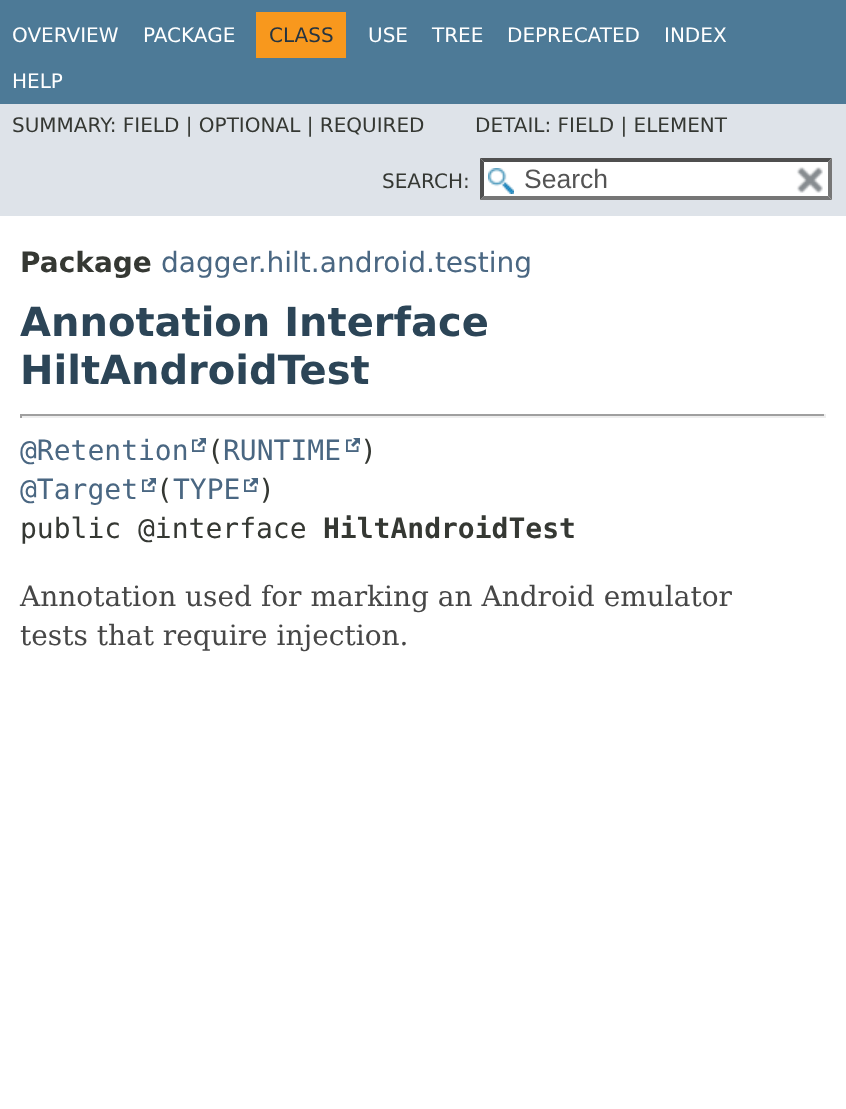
<!DOCTYPE html>
<meta charset="utf-8">
<style>body { margin: 0 } canvas { display: block }</style>
<canvas id="canvas" width="846" height="1109"></canvas>
<script type="module">
  const canvas = document.getElementById("canvas");
  const ctx = canvas.getContext("2d");
  ctx.miterLimit = 4;
  ctx.fontKerning = "normal";
  async function loadImage(src) {
    const img = new Image();
    img.src = src;
    await img.decode();
    return img;
  }

  ctx.fillStyle = "#ffffff";
  ctx.fillRect(0, 0, 846, 1109);
  ctx.fillStyle = "#4d7a97";
  ctx.fillRect(0, 0, 846, 104);
  ctx.font = "20px DejaVu Sans";
  ctx.fillStyle = "#ffffff";
  ctx.fillText("OVERVIEW", 12, 42);
  ctx.fillText("PACKAGE", 143, 42);
  ctx.fillStyle = "#f8981d";
  ctx.fillRect(256, 12, 90, 46);
  ctx.fillStyle = "#253441";
  ctx.fillText("CLASS", 269, 42);
  ctx.fillStyle = "#ffffff";
  ctx.fillText("USE", 368, 42);
  ctx.fillText("TREE", 432, 42);
  ctx.fillText("DEPRECATED", 507, 42);
  ctx.fillText("INDEX", 664, 42);
  ctx.fillText("HELP", 12, 88);
  ctx.fillStyle = "#dee3e9";
  ctx.fillRect(0, 104, 846, 112);
  ctx.fillStyle = "#353833";
  ctx.fillText("SUMMARY: FIELD | OPTIONAL | REQUIRED", 12, 132);
  ctx.fillText("DETAIL: FIELD | ELEMENT", 475, 132);
  ctx.fillText("SEARCH:", 382, 188);
  ctx.fillStyle = "#ffffff";
  ctx.fillRect(480, 158, 352, 42);
  ctx.drawImage(await loadImage("img1.png"), 488, 168, 26, 26);
  ctx.fillStyle = "#4f4f4f";
  ctx.beginPath();
  ctx.moveTo(480, 158);
  ctx.lineTo(832, 158);
  ctx.lineTo(828, 162);
  ctx.lineTo(484, 162);
  ctx.closePath();
  ctx.fill();
  ctx.fillStyle = "#767676";
  ctx.beginPath();
  ctx.moveTo(832, 158);
  ctx.lineTo(832, 200);
  ctx.lineTo(828, 196);
  ctx.lineTo(828, 162);
  ctx.closePath();
  ctx.fill();
  ctx.beginPath();
  ctx.moveTo(832, 200);
  ctx.lineTo(480, 200);
  ctx.lineTo(484, 196);
  ctx.lineTo(828, 196);
  ctx.closePath();
  ctx.fill();
  ctx.fillStyle = "#4f4f4f";
  ctx.beginPath();
  ctx.moveTo(480, 200);
  ctx.lineTo(480, 158);
  ctx.lineTo(484, 162);
  ctx.lineTo(484, 196);
  ctx.closePath();
  ctx.fill();
  ctx.font = "26.5px Liberation Sans";
  ctx.fillStyle = "#545454";
  ctx.fillText("Search", 524, 188);
  ctx.drawImage(await loadImage("img2.png"), 796, 166, 27, 27);
  ctx.font = "bold 28px DejaVu Sans";
  ctx.fillStyle = "#353833";
  ctx.fillText("Package", 20, 272);
  ctx.font = "28px DejaVu Sans";
  ctx.fillStyle = "#4a6782";
  ctx.fillText("dagger.hilt.android.testing", 161, 272);
  ctx.font = "bold 40px DejaVu Sans";
  ctx.fillStyle = "#2c4557";
  ctx.fillText("Annotation Interface", 20, 336);
  ctx.fillText("HiltAndroidTest", 20, 384);
  ctx.fillStyle = "#9f9f9f";
  ctx.fillRect(20, 414, 806, 2);
  ctx.fillStyle = "#eeeeee";
  ctx.fillRect(824, 414, 2, 4);
  ctx.fillRect(20, 416, 806, 2);
  ctx.fillStyle = "#9f9f9f";
  ctx.fillRect(20, 414, 2, 4);
  ctx.font = "28px DejaVu Sans Mono";
  ctx.fillStyle = "#4a6782";
  ctx.fillText("@Retention", 20, 460);
  ctx.drawImage(await loadImage("img3.png"), 192, 438, 14, 14);
  ctx.fillStyle = "#353833";
  ctx.fillText("(", 207, 460);
  ctx.fillStyle = "#4a6782";
  ctx.fillText("RUNTIME", 223, 460);
  ctx.drawImage(await loadImage("img3.png"), 346, 438, 14, 14);
  ctx.fillStyle = "#353833";
  ctx.fillText(")", 360, 460);
  ctx.fillStyle = "#4a6782";
  ctx.fillText("@Target", 20, 499);
  ctx.drawImage(await loadImage("img3.png"), 142, 478, 14, 14);
  ctx.fillStyle = "#353833";
  ctx.fillText("(", 156, 499);
  ctx.fillStyle = "#4a6782";
  ctx.fillText("TYPE", 173, 499);
  ctx.drawImage(await loadImage("img3.png"), 244, 478, 14, 14);
  ctx.fillStyle = "#353833";
  ctx.fillText(")", 258, 499);
  ctx.fillText("public @interface", 20, 538);
  ctx.font = "bold 28px DejaVu Sans Mono";
  ctx.fillText("HiltAndroidTest", 323, 538);
  ctx.font = "28px DejaVu Serif";
  ctx.fillStyle = "#474747";
  ctx.fillText("Annotation used for marking an Android emulator", 20, 606);
  ctx.fillText("tests that require injection.", 20, 645);
</script>
